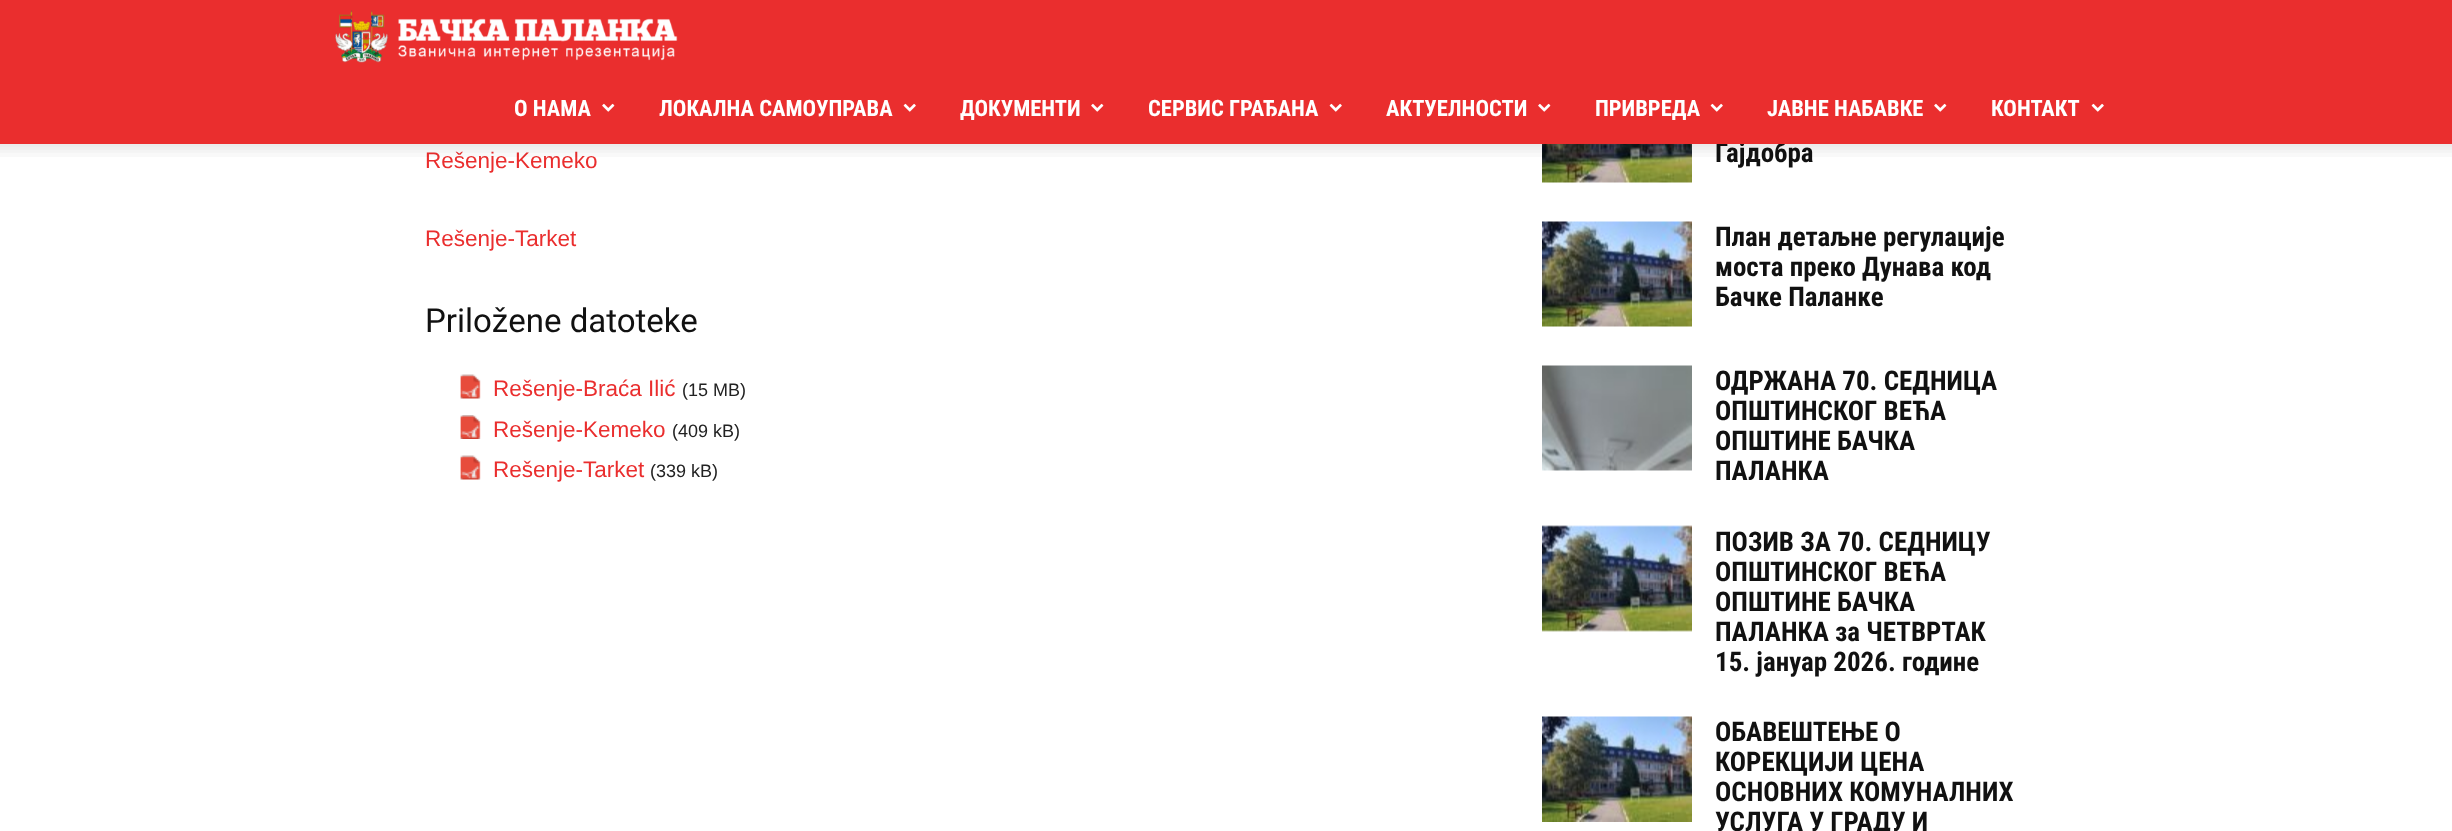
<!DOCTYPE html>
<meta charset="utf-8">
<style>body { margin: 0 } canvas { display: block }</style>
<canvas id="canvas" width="2452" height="831"></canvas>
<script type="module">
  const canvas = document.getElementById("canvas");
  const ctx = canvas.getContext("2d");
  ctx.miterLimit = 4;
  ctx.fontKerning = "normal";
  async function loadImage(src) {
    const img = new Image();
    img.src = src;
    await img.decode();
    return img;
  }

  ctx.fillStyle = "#ffffff";
  ctx.fillRect(0, 0, 2452, 831);
  ctx.font = "bold 27px Roboto Condensed";
  ctx.fillStyle = "#111111";
  ctx.fillText("Гајдобра", 1715, 162);
  ctx.fillStyle = "#ea2e2e";
  ctx.fillRect(0, 0, 2452, 144);
  ctx.drawImage(await loadImage("img1.png"), 335, 10, 343, 53);
  ctx.font = "bold 22.5px Roboto Condensed";
  ctx.fillStyle = "#ffffff";
  ctx.fillText("О НАМА", 514, 116);
  ctx.drawImage(await loadImage("img2.png"), 602, 103, 13, 9);
  ctx.fillText("ЛОКАЛНА САМОУПРАВА", 659, 116);
  ctx.drawImage(await loadImage("img3.png"), 903, 103, 13, 9);
  ctx.fillText("ДОКУМЕНТИ", 960, 116);
  ctx.drawImage(await loadImage("img2.png"), 1091, 103, 13, 9);
  ctx.fillText("СЕРВИС ГРАЂАНА", 1148, 116);
  ctx.drawImage(await loadImage("img3.png"), 1329, 103, 13, 9);
  ctx.fillText("АКТУЕЛНОСТИ", 1386, 116);
  ctx.drawImage(await loadImage("img2.png"), 1538, 103, 13, 9);
  ctx.fillText("ПРИВРЕДА", 1595, 116);
  ctx.drawImage(await loadImage("img3.png"), 1710, 103, 13, 9);
  ctx.fillText("ЈАВНЕ НАБАВКЕ", 1767, 116);
  ctx.drawImage(await loadImage("img2.png"), 1934, 103, 13, 9);
  ctx.fillText("КОНТАКТ", 1991, 116);
  ctx.drawImage(await loadImage("img3.png"), 2091, 103, 13, 9);
  ctx.font = "22.5px Liberation Sans";
  ctx.fillStyle = "#ea2e2e";
  ctx.fillText("Rešenje-Kemeko", 425, 168);
  ctx.drawImage(await loadImage("img7.png"), 1542, 144, 150, 39);
  ctx.drawImage(await loadImage("img4.png"), 0, 144, 2452, 13);
  ctx.fillText("Rešenje-Tarket", 425, 246);
  ctx.font = "33px Roboto";
  ctx.fillStyle = "#111111";
  ctx.fillText("Priložene datoteke", 425, 332);
  ctx.drawImage(await loadImage("img5.png"), 460, 374, 21, 25);
  ctx.font = "22.5px Liberation Sans";
  ctx.fillStyle = "#ea2e2e";
  ctx.fillText("Rešenje-Braća Ilić", 493, 396);
  ctx.font = "18px Liberation Sans";
  ctx.fillStyle = "#222222";
  ctx.fillText("(15 MB)", 682, 396);
  ctx.drawImage(await loadImage("img6.png"), 460, 415, 21, 24);
  ctx.font = "22.5px Liberation Sans";
  ctx.fillStyle = "#ea2e2e";
  ctx.fillText("Rešenje-Kemeko", 493, 437);
  ctx.font = "18px Liberation Sans";
  ctx.fillStyle = "#222222";
  ctx.fillText("(409 kB)", 672, 437);
  ctx.drawImage(await loadImage("img5.png"), 460, 455, 21, 25);
  ctx.font = "22.5px Liberation Sans";
  ctx.fillStyle = "#ea2e2e";
  ctx.fillText("Rešenje-Tarket", 493, 477);
  ctx.font = "18px Liberation Sans";
  ctx.fillStyle = "#222222";
  ctx.fillText("(339 kB)", 650, 477);
  ctx.drawImage(await loadImage("img8.png"), 1542, 221, 150, 106);
  ctx.font = "bold 27px Roboto Condensed";
  ctx.fillStyle = "#111111";
  ctx.fillText("План детаљне регулације", 1715, 246);
  ctx.fillText("моста преко Дунава код", 1715, 276);
  ctx.fillText("Бачке Паланке", 1715, 306);
  ctx.drawImage(await loadImage("img9.png"), 1542, 365, 150, 106);
  ctx.fillText("ОДРЖАНА 70. СЕДНИЦA", 1715, 390);
  ctx.fillText("ОПШТИНСКОГ ВЕЋА", 1715, 420);
  ctx.fillText("ОПШТИНЕ БАЧКА", 1715, 450);
  ctx.fillText("ПАЛАНКА", 1715, 480);
  ctx.drawImage(await loadImage("img10.png"), 1542, 525, 150, 107);
  ctx.fillText("ПОЗИВ ЗА 70. СЕДНИЦУ", 1715, 551);
  ctx.fillText("ОПШТИНСКОГ ВЕЋА", 1715, 581);
  ctx.fillText("ОПШТИНЕ БАЧКА", 1715, 611);
  ctx.fillText("ПАЛАНКА за ЧЕТВРТАК", 1715, 641);
  ctx.fillText("15. jануар 2026. године", 1715, 671);
  ctx.drawImage(await loadImage("img11.png"), 1542, 716, 150, 106);
  ctx.fillText("ОБАВЕШТЕЊЕ О", 1715, 741);
  ctx.fillText("КОРЕКЦИЈИ ЦЕНА", 1715, 771);
  ctx.fillText("ОСНОВНИХ КОМУНАЛНИХ", 1715, 801);
  ctx.fillText("УСЛУГА У ГРАДУ И", 1715, 831);
</script>
